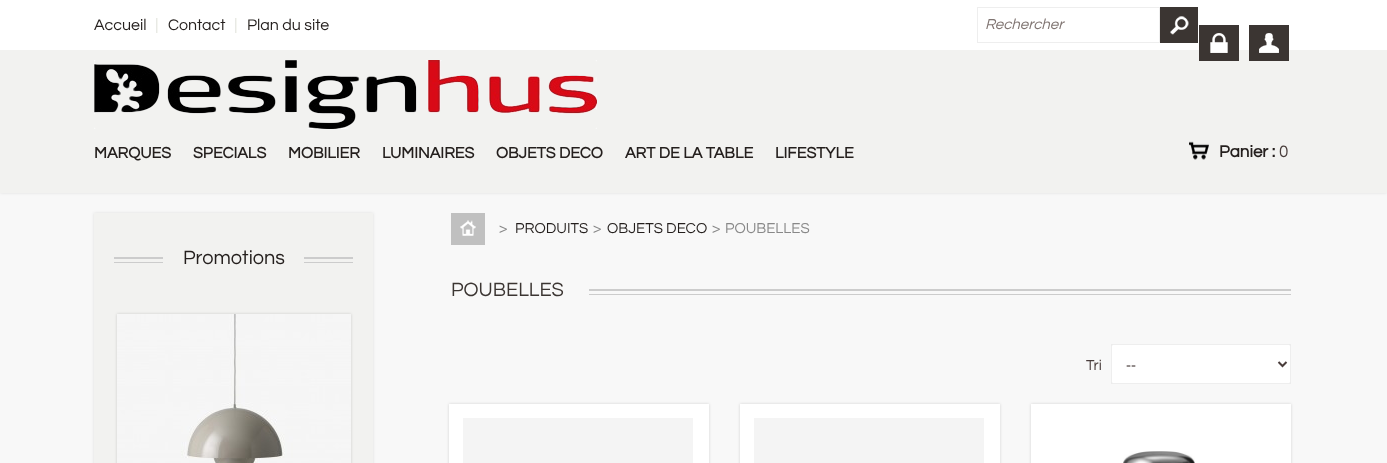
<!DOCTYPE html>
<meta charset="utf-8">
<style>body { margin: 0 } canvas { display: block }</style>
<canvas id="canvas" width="1387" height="463"></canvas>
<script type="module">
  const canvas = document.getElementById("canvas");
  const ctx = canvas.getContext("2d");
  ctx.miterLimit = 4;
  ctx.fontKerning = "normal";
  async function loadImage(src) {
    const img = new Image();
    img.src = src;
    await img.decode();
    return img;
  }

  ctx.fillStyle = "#f8f8f8";
  ctx.fillRect(0, 0, 1387, 463);
  ctx.fillStyle = "rgba(0, 0, 0, 0.1)";
  ctx.filter = "blur(1.5px)";
  ctx.beginPath();
  ctx.rect(0, 0, 1387, 193);
  ctx.fill();
  ctx.filter = "none";
  ctx.fillStyle = "#f2f2f0";
  ctx.fillRect(0, 50, 1387, 143);
  ctx.fillStyle = "#ffffff";
  ctx.fillRect(0, 0, 1387, 50);
  ctx.font = "16px Questrial";
  ctx.fillStyle = "#241f1d";
  ctx.fillText("Accueil", 94, 30);
  ctx.drawImage(await loadImage("img1.png"), 156, 18, 2, 15);
  ctx.fillText("Contact", 168, 30);
  ctx.drawImage(await loadImage("img1.png"), 235, 18, 2, 15);
  ctx.fillText("Plan du site", 247, 30);
  ctx.strokeStyle = "#eeeeee";
  ctx.strokeRect(977.5, 7.5, 182, 35);
  ctx.font = "italic 15px Questrial";
  ctx.fillStyle = "#807572";
  ctx.fillText("Rechercher", 985, 29);
  ctx.fillStyle = "#3b3532";
  ctx.fillRect(1160, 7, 38, 36);
  ctx.drawImage(await loadImage("img2.png"), 1170, 16, 19, 19);
  ctx.drawImage(await loadImage("img3.png"), 94, 60, 503, 69);
  ctx.fillRect(1199, 25, 40, 36);
  ctx.fillRect(1249, 25, 40, 36);
  ctx.drawImage(await loadImage("img4.png"), 1210, 33, 18, 20);
  ctx.drawImage(await loadImage("img5.png"), 1259, 33, 20, 20);
  ctx.drawImage(await loadImage("img6.png"), 1189, 141, 20, 19);
  ctx.font = "bold 17px Questrial";
  ctx.fillStyle = "#241f1d";
  ctx.fillText("Panier :", 1219, 157);
  ctx.font = "17px Questrial";
  ctx.fillStyle = "#493d3b";
  ctx.fillText("0", 1279, 157);
  ctx.font = "bold 16px Questrial";
  ctx.fillStyle = "#241f1d";
  ctx.fillText("MARQUES", 94, 158);
  ctx.fillText("SPECIALS", 193, 158);
  ctx.fillText("MOBILIER", 288, 158);
  ctx.fillText("LUMINAIRES", 382, 158);
  ctx.fillText("OBJETS DECO", 496, 158);
  ctx.fillText("ART DE LA TABLE", 625, 158);
  ctx.fillText("LIFESTYLE", 775, 158);
  ctx.fillStyle = "rgba(0, 0, 0, 0.1)";
  ctx.filter = "blur(1.5px)";
  ctx.beginPath();
  ctx.rect(94, 213, 279, 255);
  ctx.fill();
  ctx.filter = "none";
  ctx.fillStyle = "#f2f2f0";
  ctx.fillRect(94, 213, 279, 250);
  ctx.drawImage(await loadImage("img7.png"), 114, 257, 239, 6);
  ctx.fillRect(163, 257, 141, 6);
  ctx.font = "20px Questrial";
  ctx.fillStyle = "#241f1d";
  ctx.fillText("Promotions", 183, 264);
  ctx.fillStyle = "rgba(0, 0, 0, 0.15)";
  ctx.filter = "blur(1.5px)";
  ctx.beginPath();
  ctx.rect(117, 314, 234, 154);
  ctx.fill();
  ctx.filter = "none";
  ctx.drawImage(await loadImage("img8.png"), 117, 314, 234, 149);
  ctx.fillStyle = "#c0c0c0";
  ctx.fillRect(451, 213, 34, 32);
  ctx.drawImage(await loadImage("img9.png"), 460, 220, 16, 16);
  ctx.font = "15px Questrial";
  ctx.fillStyle = "#888888";
  ctx.fillText(">", 499, 233);
  ctx.fillStyle = "#241f1d";
  ctx.fillText("PRODUITS", 515, 233);
  ctx.fillStyle = "#888888";
  ctx.fillText(">", 593, 233);
  ctx.fillStyle = "#241f1d";
  ctx.fillText("OBJETS DECO", 607, 233);
  ctx.fillStyle = "#888888";
  ctx.fillText(">", 712, 233);
  ctx.fillText("POUBELLES", 725, 233);
  ctx.font = "20px Questrial";
  ctx.fillStyle = "#3b3532";
  ctx.fillText("POUBELLES", 451, 296);
  ctx.drawImage(await loadImage("img10.png"), 589, 289, 702, 6);
  ctx.font = "15px Questrial";
  ctx.fillStyle = "#493d3b";
  ctx.fillText("Tri", 1086, 370);
  ctx.fillStyle = "rgba(0, 0, 0, 0.15)";
  ctx.filter = "blur(0.5px)";
  ctx.beginPath();
  ctx.roundRect(1111, 344, 180, 40, 2);
  ctx.fill();
  ctx.filter = "none";
  ctx.fillStyle = "#ffffff";
  ctx.beginPath();
  ctx.roundRect(1111.5, 344.5, 179, 39, 1.5);
  ctx.fill();
  ctx.stroke();
  ctx.beginPath();
  ctx.moveTo(1278.5, 362);
  ctx.lineTo(1282.5, 366);
  ctx.lineTo(1286.5, 362);
  ctx.strokeStyle = "#493d3b";
  ctx.lineWidth = 2;
  ctx.stroke();
  ctx.font = "15px Liberation Sans";
  ctx.fillStyle = "#493d3b";
  ctx.fillText("--", 1126, 370);
  ctx.fillStyle = "rgba(0, 0, 0, 0.15)";
  ctx.filter = "blur(1.5px)";
  ctx.beginPath();
  ctx.rect(449, 404, 260, 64);
  ctx.fill();
  ctx.filter = "none";
  ctx.fillStyle = "#ffffff";
  ctx.fillRect(449, 404, 260, 59);
  ctx.fillStyle = "#f4f4f4";
  ctx.fillRect(463, 418, 230, 45);
  ctx.fillStyle = "rgba(0, 0, 0, 0.15)";
  ctx.filter = "blur(1.5px)";
  ctx.beginPath();
  ctx.rect(740, 404, 260, 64);
  ctx.fill();
  ctx.filter = "none";
  ctx.fillStyle = "#ffffff";
  ctx.fillRect(740, 404, 260, 59);
  ctx.fillStyle = "#f4f4f4";
  ctx.fillRect(754, 418, 230, 45);
  ctx.fillStyle = "rgba(0, 0, 0, 0.15)";
  ctx.filter = "blur(1.5px)";
  ctx.beginPath();
  ctx.rect(1031, 404, 260, 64);
  ctx.fill();
  ctx.filter = "none";
  ctx.fillStyle = "#ffffff";
  ctx.fillRect(1031, 404, 260, 59);
  ctx.drawImage(await loadImage("img11.png"), 1123, 451, 72, 12);
</script>
